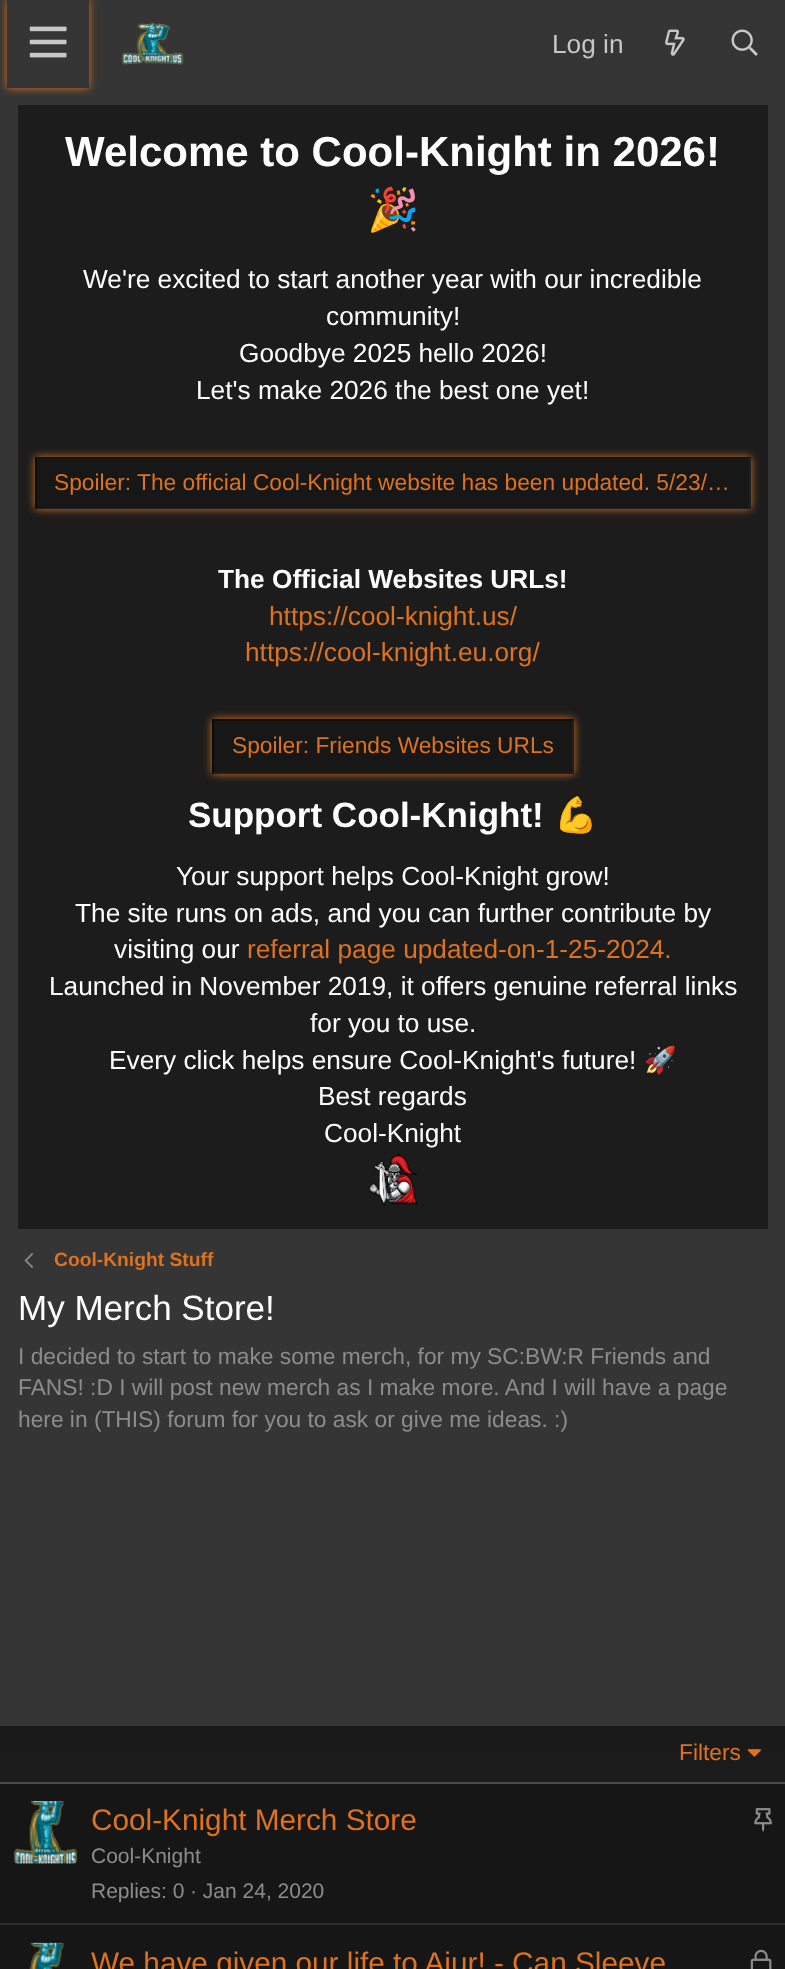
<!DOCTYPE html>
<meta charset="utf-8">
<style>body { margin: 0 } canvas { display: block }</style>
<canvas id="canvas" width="785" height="1969"></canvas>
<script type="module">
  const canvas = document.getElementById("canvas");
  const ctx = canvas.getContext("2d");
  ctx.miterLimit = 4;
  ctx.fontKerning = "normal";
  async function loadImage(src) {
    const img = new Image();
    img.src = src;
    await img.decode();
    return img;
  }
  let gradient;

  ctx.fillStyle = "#353535";
  ctx.fillRect(0, 0, 785, 1969);
  ctx.save();
  ctx.beginPath();
  ctx.moveTo(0, 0);
  ctx.lineTo(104, 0);
  ctx.lineTo(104, 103);
  ctx.lineTo(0, 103);
  ctx.closePath();
  ctx.moveTo(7, 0);
  ctx.lineTo(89, 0);
  ctx.lineTo(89, 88);
  ctx.lineTo(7, 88);
  ctx.closePath();
  ctx.clip("evenodd");
  ctx.fillStyle = "#dd721f";
  ctx.filter = "blur(4.5px)";
  ctx.beginPath();
  ctx.rect(7, 0, 82, 88);
  ctx.fill();
  ctx.filter = "none";
  ctx.restore();
  ctx.drawImage(await loadImage("img1.png"), 29, 26, 38, 32);
  ctx.drawImage(await loadImage("img2.png"), 121, 22, 63, 43);
  ctx.font = "26.25px Liberation Sans";
  ctx.fillStyle = "#c7c7c7";
  ctx.fillText("Log in", 552, 53);
  ctx.drawImage(await loadImage("img3.png"), 665, 29, 20, 27);
  ctx.drawImage(await loadImage("img4.png"), 731, 29, 27, 27);
  ctx.fillStyle = "#1c1c1c";
  ctx.fillRect(18, 105, 750, 1124);
  ctx.font = "bold 42px Liberation Sans";
  ctx.fillStyle = "#fefefe";
  ctx.fillText("Welcome to Cool-Knight in 2026!", 65, 166);
  ctx.font = "bold 42px Noto Color Emoji";
  ctx.fillText("🎉", 367, 224);
  ctx.font = "26.25px Liberation Sans";
  ctx.fillText("We're excited to start another year with our incredible", 83, 288);
  ctx.fillText("community!", 326, 325);
  ctx.fillText("Goodbye 2025 hello 2026!", 239, 362);
  ctx.fillText("Let's make 2026 the best one yet!", 196, 399);
  ctx.save();
  ctx.beginPath();
  ctx.moveTo(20, 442);
  ctx.lineTo(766, 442);
  ctx.lineTo(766, 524);
  ctx.lineTo(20, 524);
  ctx.closePath();
  ctx.moveTo(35, 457);
  ctx.lineTo(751, 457);
  ctx.lineTo(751, 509);
  ctx.lineTo(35, 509);
  ctx.closePath();
  ctx.clip("evenodd");
  ctx.fillStyle = "#dd721f";
  ctx.filter = "blur(4.5px)";
  ctx.beginPath();
  ctx.rect(35, 457, 716, 52);
  ctx.fill();
  ctx.filter = "none";
  ctx.restore();
  ctx.fillStyle = "rgba(22, 22, 22, 0.75)";
  ctx.fillRect(35, 457, 716, 52);
  ctx.fillStyle = "#0d0d0d";
  ctx.beginPath();
  ctx.moveTo(35, 457);
  ctx.lineTo(751, 457);
  ctx.lineTo(749, 458);
  ctx.lineTo(37, 458);
  ctx.closePath();
  ctx.fill();
  ctx.fillStyle = "rgba(35, 35, 35, 0.75)";
  ctx.beginPath();
  ctx.moveTo(751, 457);
  ctx.lineTo(751, 509);
  ctx.lineTo(749, 508);
  ctx.lineTo(749, 458);
  ctx.closePath();
  ctx.fill();
  ctx.fillStyle = "#202020";
  ctx.beginPath();
  ctx.moveTo(751, 509);
  ctx.lineTo(35, 509);
  ctx.lineTo(37, 508);
  ctx.lineTo(749, 508);
  ctx.closePath();
  ctx.fill();
  ctx.fillStyle = "rgba(9, 9, 9, 0.75)";
  ctx.beginPath();
  ctx.moveTo(35, 509);
  ctx.lineTo(35, 457);
  ctx.lineTo(37, 458);
  ctx.lineTo(37, 508);
  ctx.closePath();
  ctx.fill();
  ctx.font = "22.75px Liberation Sans";
  ctx.fillStyle = "#dd721f";
  ctx.fillText("Spoiler:", 54, 490);
  ctx.fillText("The official Cool-Knight website has been updated. 5/23/…", 137, 490);
  ctx.font = "bold 26.25px Liberation Sans";
  ctx.fillStyle = "#fefefe";
  ctx.fillText("The Official Websites URLs!", 218, 588);
  ctx.font = "26.25px Liberation Sans";
  ctx.fillStyle = "#dd721f";
  ctx.fillText("https://cool-knight.us/", 269, 625);
  ctx.fillText("https://cool-knight.eu.org/", 245, 661);
  ctx.save();
  ctx.beginPath();
  ctx.moveTo(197, 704);
  ctx.lineTo(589, 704);
  ctx.lineTo(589, 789);
  ctx.lineTo(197, 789);
  ctx.closePath();
  ctx.moveTo(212, 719);
  ctx.lineTo(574, 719);
  ctx.lineTo(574, 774);
  ctx.lineTo(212, 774);
  ctx.closePath();
  ctx.clip("evenodd");
  ctx.filter = "blur(4.5px)";
  ctx.beginPath();
  ctx.rect(212, 719, 362, 55);
  ctx.fill();
  ctx.filter = "none";
  ctx.restore();
  ctx.fillStyle = "rgba(22, 22, 22, 0.75)";
  ctx.fillRect(212, 719, 362, 55);
  ctx.fillStyle = "rgba(9, 9, 9, 0.75)";
  ctx.beginPath();
  ctx.moveTo(212, 719);
  ctx.lineTo(574, 719);
  ctx.lineTo(572, 721);
  ctx.lineTo(214, 721);
  ctx.closePath();
  ctx.fill();
  ctx.fillStyle = "rgba(35, 35, 35, 0.75)";
  ctx.beginPath();
  ctx.moveTo(574, 719);
  ctx.lineTo(574, 774);
  ctx.lineTo(572, 772);
  ctx.lineTo(572, 721);
  ctx.closePath();
  ctx.fill();
  ctx.beginPath();
  ctx.moveTo(574, 774);
  ctx.lineTo(212, 774);
  ctx.lineTo(214, 772);
  ctx.lineTo(572, 772);
  ctx.closePath();
  ctx.fill();
  ctx.fillStyle = "rgba(9, 9, 9, 0.75)";
  ctx.beginPath();
  ctx.moveTo(212, 774);
  ctx.lineTo(212, 719);
  ctx.lineTo(214, 721);
  ctx.lineTo(214, 772);
  ctx.closePath();
  ctx.fill();
  ctx.font = "22.75px Liberation Sans";
  ctx.fillStyle = "#dd721f";
  ctx.fillText("Spoiler: Friends Websites URLs", 232, 753);
  ctx.font = "bold 35px Liberation Sans";
  ctx.fillStyle = "#fefefe";
  ctx.fillText("Support Cool-Knight!", 188, 827);
  ctx.font = "bold 35px Noto Color Emoji";
  ctx.fillText("💪", 554, 827);
  ctx.font = "26.25px Liberation Sans";
  ctx.fillText("Your support helps Cool-Knight grow!", 176, 885);
  ctx.fillText("The site runs on ads, and you can further contribute by", 75, 922);
  ctx.fillText("visiting our", 114, 958);
  ctx.fillStyle = "#dd721f";
  ctx.fillText("referral page updated-on-1-25-2024.", 247, 958);
  ctx.fillStyle = "#fefefe";
  ctx.fillText("Launched in November 2019, it offers genuine referral links", 49, 995);
  ctx.fillText("for you to use.", 310, 1032);
  ctx.fillText("Every click helps ensure Cool-Knight's future!", 109, 1069);
  ctx.font = "26.25px Noto Color Emoji";
  ctx.fillText("🚀", 644, 1069);
  ctx.font = "26.25px Liberation Sans";
  ctx.fillText("Best regards", 318, 1105);
  ctx.fillText("Cool-Knight", 324, 1142);
  ctx.drawImage(await loadImage("img5.png"), 368, 1154, 50, 52);
  ctx.drawImage(await loadImage("img6.png"), 24, 1253, 9, 15);
  ctx.font = "bold 19.25px Liberation Sans";
  ctx.fillStyle = "#dd721f";
  ctx.fillText("Cool-Knight Stuff", 54, 1266);
  ctx.font = "35px Liberation Sans";
  ctx.fillStyle = "#fefefe";
  ctx.fillText("My Merch Store!", 18, 1320);
  ctx.font = "22.75px Liberation Sans";
  ctx.fillStyle = "#8c8c8c";
  ctx.fillText("I decided to start to make some merch, for my SC:BW:R Friends and", 18, 1364);
  ctx.fillText("FANS! :D I will post new merch as I make more. And I will have a page", 18, 1395);
  ctx.fillText("here in (THIS) forum for you to ask or give me ideas. :)", 18, 1427);
  ctx.fillStyle = "#161616";
  ctx.fillRect(0, 1784, 785, 185);
  gradient = ctx.createLinearGradient(393, 1782, 393, 1726);
  gradient.addColorStop(0, "#1c1c1c");
  gradient.addColorStop(1, "#191919");
  ctx.fillStyle = gradient;
  ctx.fillRect(0, 1726, 785, 56);
  ctx.fillStyle = "#494949";
  ctx.fillRect(0, 1782, 785, 2);
  ctx.fillStyle = "#dd721f";
  ctx.fillText("Filters", 679, 1760);
  ctx.drawImage(await loadImage("img7.png"), 747, 1749, 14, 8);
  ctx.drawImage(await loadImage("img8.png"), 14, 1801, 63, 63);
  ctx.font = "29.75px Liberation Sans";
  ctx.fillText("Cool-Knight Merch Store", 91, 1830);
  ctx.drawImage(await loadImage("img9.png"), 754, 1808, 18, 24);
  ctx.font = "21px Liberation Sans";
  ctx.fillStyle = "#8c8c8c";
  ctx.fillText("Cool-Knight", 91, 1863);
  ctx.fillText("Replies: 0", 91, 1898);
  ctx.fillText("· Jan 24, 2020", 190, 1898);
  ctx.fillStyle = "#2d2d2d";
  ctx.fillRect(0, 1923, 785, 2);
  ctx.drawImage(await loadImage("img10.png"), 29, 1942, 35, 27);
  ctx.font = "29.75px Liberation Sans";
  ctx.fillStyle = "#dd721f";
  ctx.fillText("We have given our life to Aiur! - Can Sleeve", 91, 1973);
  ctx.drawImage(await loadImage("img11.png"), 750, 1949, 22, 20);
</script>
